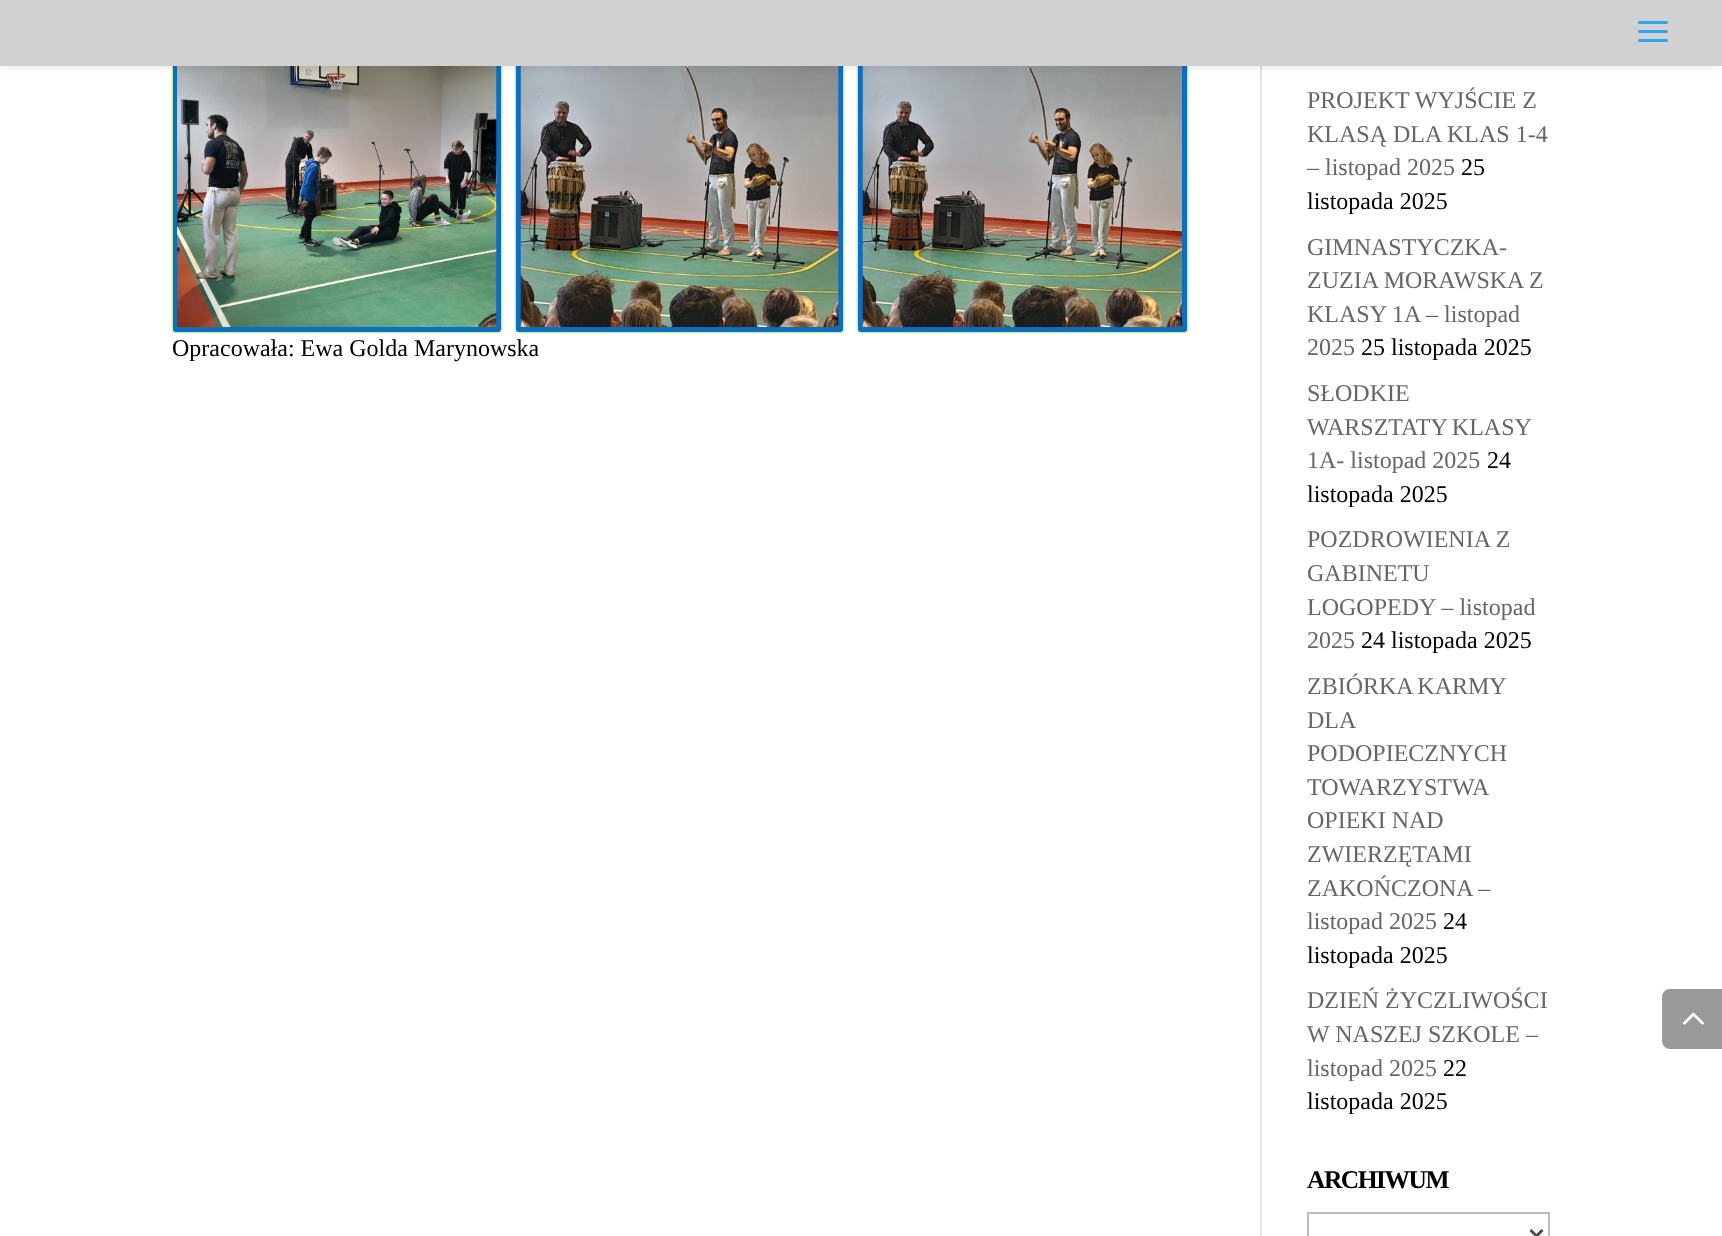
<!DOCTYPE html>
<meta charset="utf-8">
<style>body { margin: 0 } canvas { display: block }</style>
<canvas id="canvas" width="1722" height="1236"></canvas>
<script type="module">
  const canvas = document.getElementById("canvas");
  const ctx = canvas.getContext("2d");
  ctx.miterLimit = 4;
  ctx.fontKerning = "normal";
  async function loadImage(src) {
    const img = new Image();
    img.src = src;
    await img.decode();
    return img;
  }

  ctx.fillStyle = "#ffffff";
  ctx.fillRect(0, 0, 1722, 1236);
  ctx.fillStyle = "#e2e2e2";
  ctx.fillRect(1260, 66, 2, 1170);
  ctx.fillStyle = "#5fd60a";
  ctx.filter = "blur(1.5px)";
  ctx.beginPath();
  ctx.roundRect(173, 3, 328, 329, 3);
  ctx.fill();
  ctx.filter = "none";
  ctx.beginPath();
  ctx.roundRect(175.5, 5.5, 323, 324, 0.5);
  ctx.strokeStyle = "#0f6dbf";
  ctx.lineWidth = 5;
  ctx.stroke();
  ctx.drawImage(await loadImage("img2.png"), 177, 66, 320, 261);
  ctx.filter = "blur(1.5px)";
  ctx.beginPath();
  ctx.roundRect(516, 3, 327, 329, 3);
  ctx.fill();
  ctx.filter = "none";
  ctx.beginPath();
  ctx.roundRect(518.5, 5.5, 322, 324, 0.5);
  ctx.stroke();
  ctx.drawImage(await loadImage("img3.png"), 520, 66, 319, 261);
  ctx.filter = "blur(1.5px)";
  ctx.beginPath();
  ctx.roundRect(858, 3, 329, 329, 3);
  ctx.fill();
  ctx.filter = "none";
  ctx.beginPath();
  ctx.roundRect(860.5, 5.5, 324, 324, 0.5);
  ctx.stroke();
  ctx.drawImage(await loadImage("img4.png"), 862, 66, 320, 261);
  ctx.fillStyle = "rgba(0, 0, 0, 0.1)";
  ctx.filter = "blur(5px)";
  ctx.beginPath();
  ctx.rect(0, 0, 1722, 66);
  ctx.fill();
  ctx.filter = "none";
  ctx.fillStyle = "#d1d1d1";
  ctx.fillRect(0, 0, 1722, 66);
  ctx.drawImage(await loadImage("img1.png"), 1638, 21, 30, 21);
  ctx.font = "24px Liberation Serif";
  ctx.fillStyle = "#000000";
  ctx.fillText("Opracowała: Ewa Golda Marynowska", 172, 356);
  ctx.fillStyle = "#666666";
  ctx.fillText("PROJEKT WYJŚCIE Z", 1307, 108);
  ctx.fillText("KLASĄ DLA KLAS 1-4", 1307, 142);
  ctx.fillText("– listopad 2025", 1307, 175);
  ctx.fillStyle = "#000000";
  ctx.fillText("25", 1461, 175);
  ctx.fillText("listopada 2025", 1307, 209);
  ctx.fillStyle = "#666666";
  ctx.fillText("GIMNASTYCZKA-", 1307, 255);
  ctx.fillText("ZUZIA MORAWSKA Z", 1307, 288);
  ctx.fillText("KLASY 1A – listopad", 1307, 322);
  ctx.fillText("2025", 1307, 355);
  ctx.fillStyle = "#000000";
  ctx.fillText("25 listopada 2025", 1361, 355);
  ctx.fillStyle = "#666666";
  ctx.fillText("SŁODKIE", 1307, 401);
  ctx.wordSpacing = "-1px";
  ctx.fillText("WARSZTATY KLASY", 1307, 435);
  ctx.wordSpacing = "0px";
  ctx.fillText("1A- listopad 2025", 1307, 468);
  ctx.fillStyle = "#000000";
  ctx.fillText("24", 1487, 468);
  ctx.fillText("listopada 2025", 1307, 502);
  ctx.fillStyle = "#666666";
  ctx.fillText("POZDROWIENIA Z", 1307, 547);
  ctx.fillText("GABINETU", 1307, 581);
  ctx.fillText("LOGOPEDY – listopad", 1307, 615);
  ctx.fillText("2025", 1307, 648);
  ctx.fillStyle = "#000000";
  ctx.fillText("24 listopada 2025", 1361, 648);
  ctx.wordSpacing = "-1px";
  ctx.fillStyle = "#666666";
  ctx.fillText("ZBIÓRKA KARMY", 1307, 694);
  ctx.wordSpacing = "0px";
  ctx.fillText("DLA", 1307, 728);
  ctx.fillText("PODOPIECZNYCH", 1307, 761);
  ctx.fillText("TOWARZYSTWA", 1307, 795);
  ctx.fillText("OPIEKI NAD", 1307, 828);
  ctx.fillText("ZWIERZĘTAMI", 1307, 862);
  ctx.fillText("ZAKOŃCZONA –", 1307, 896);
  ctx.fillText("listopad 2025", 1307, 929);
  ctx.fillStyle = "#000000";
  ctx.fillText("24", 1443, 929);
  ctx.fillText("listopada 2025", 1307, 963);
  ctx.fillStyle = "#666666";
  ctx.fillText("DZIEŃ ŻYCZLIWOŚCI", 1307, 1008);
  ctx.fillText("W NASZEJ SZKOLE –", 1307, 1042);
  ctx.fillText("listopad 2025", 1307, 1076);
  ctx.fillStyle = "#000000";
  ctx.fillText("22", 1443, 1076);
  ctx.fillText("listopada 2025", 1307, 1109);
  ctx.letterSpacing = "-1.5px";
  ctx.font = "bold 25.5px Liberation Serif";
  ctx.fillText("ARCHIWUM", 1307, 1188);
  ctx.strokeStyle = "#bbbbbb";
  ctx.lineWidth = 2;
  ctx.strokeRect(1308, 1213, 241, 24);
  ctx.beginPath();
  ctx.moveTo(1530.5, 1230);
  ctx.lineTo(1536.5, 1236);
  ctx.lineTo(1542.5, 1230);
  ctx.strokeStyle = "#4e4e4e";
  ctx.lineWidth = 3;
  ctx.stroke();
  ctx.fillStyle = "#999999";
  ctx.beginPath();
  ctx.roundRect(1662, 989, 60, 60, [8, 0, 0, 8]);
  ctx.fill();
  ctx.drawImage(await loadImage("img5.png"), 1682, 1012, 22, 13);
</script>
